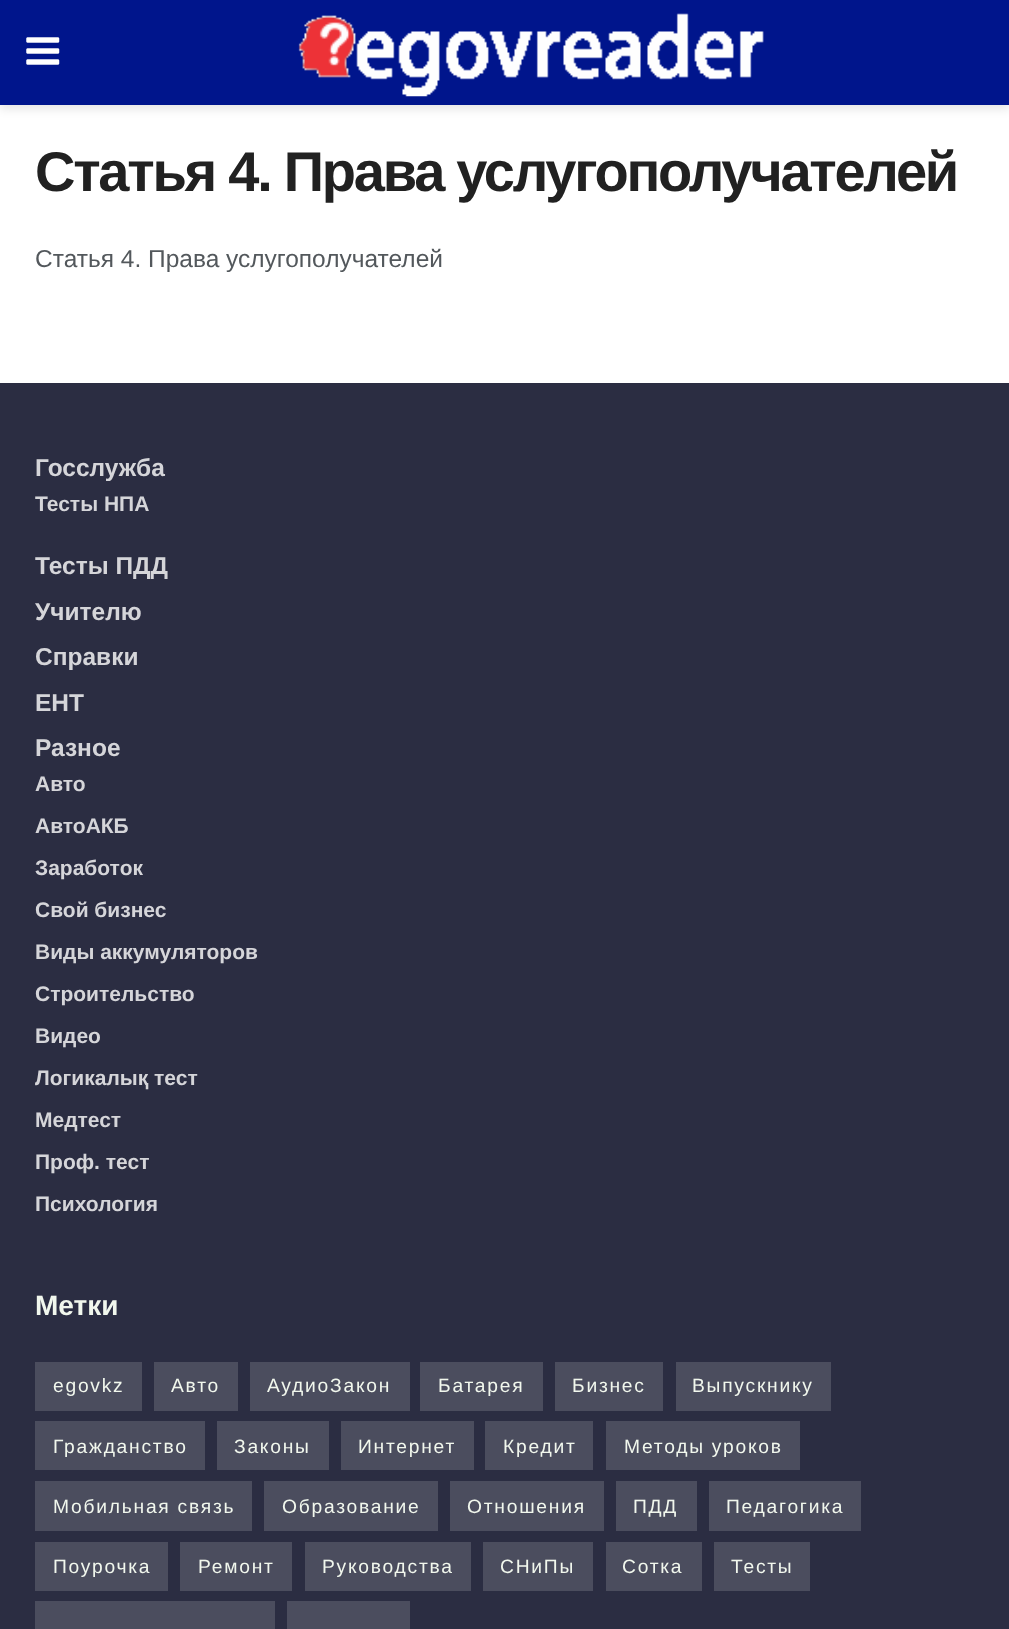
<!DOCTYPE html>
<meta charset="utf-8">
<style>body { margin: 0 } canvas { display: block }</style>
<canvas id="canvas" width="1009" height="1629"></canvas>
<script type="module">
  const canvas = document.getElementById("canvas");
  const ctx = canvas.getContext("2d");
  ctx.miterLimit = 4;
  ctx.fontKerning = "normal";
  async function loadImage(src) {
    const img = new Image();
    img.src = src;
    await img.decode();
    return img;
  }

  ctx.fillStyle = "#ffffff";
  ctx.fillRect(0, 0, 1009, 1629);
  ctx.fillStyle = "rgba(0, 0, 0, 0.1)";
  ctx.filter = "blur(5px)";
  ctx.beginPath();
  ctx.rect(0, 4, 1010, 105);
  ctx.fill();
  ctx.filter = "none";
  ctx.fillStyle = "#00158c";
  ctx.fillRect(0, 0, 1009, 105);
  ctx.drawImage(await loadImage("img1.png"), 26, 37, 34, 28);
  ctx.drawImage(await loadImage("img2.png"), 298, 13, 466, 84);
  ctx.letterSpacing = "-2.25px";
  ctx.font = "bold 56px Liberation Sans";
  ctx.fillStyle = "#212121";
  ctx.fillText("Статья 4. Права услугополучателей", 35, 191);
  ctx.letterSpacing = "0px";
  ctx.font = "24.5px Liberation Sans";
  ctx.fillStyle = "#53585c";
  ctx.fillText("Статья 4. Права услугополучателей", 35, 267);
  ctx.fillStyle = "#2b2d42";
  ctx.fillRect(0, 383, 1009, 1246);
  ctx.font = "bold 24.5px Liberation Sans";
  ctx.fillStyle = "#d5d5d9";
  ctx.fillText("Госслужба", 35, 476);
  ctx.font = "bold 21px Liberation Sans";
  ctx.fillText("Тесты НПА", 35, 511);
  ctx.font = "bold 24.5px Liberation Sans";
  ctx.fillText("Тесты ПДД", 35, 574);
  ctx.fillText("Учителю", 35, 620);
  ctx.fillText("Справки", 35, 665);
  ctx.fillText("ЕНТ", 35, 711);
  ctx.fillText("Разное", 35, 756);
  ctx.font = "bold 21px Liberation Sans";
  ctx.fillText("Авто", 35, 791);
  ctx.fillText("АвтоАКБ", 35, 833);
  ctx.fillText("Заработок", 35, 875);
  ctx.fillText("Свой бизнес", 35, 917);
  ctx.fillText("Виды аккумуляторов", 35, 959);
  ctx.fillText("Строительство", 35, 1001);
  ctx.fillText("Видео", 35, 1043);
  ctx.fillText("Логикалық тест", 35, 1085);
  ctx.fillText("Медтест", 35, 1127);
  ctx.fillText("Проф. тест", 35, 1169);
  ctx.fillText("Психология", 35, 1211);
  ctx.font = "bold 28px Liberation Sans";
  ctx.fillStyle = "#f1f7ed";
  ctx.fillText("Метки", 35, 1315);
  ctx.fillStyle = "#4b4d5e";
  ctx.fillRect(35, 1362, 107, 49);
  ctx.letterSpacing = "1.75px";
  ctx.font = "19.25px Liberation Sans";
  ctx.fillStyle = "#f1f7ed";
  ctx.fillText("egovkz", 53, 1392);
  ctx.fillStyle = "#4b4d5e";
  ctx.fillRect(154, 1362, 84, 49);
  ctx.fillStyle = "#f1f7ed";
  ctx.fillText("Авто", 171, 1392);
  ctx.fillStyle = "#4b4d5e";
  ctx.fillRect(250, 1362, 160, 49);
  ctx.fillStyle = "#f1f7ed";
  ctx.fillText("АудиоЗакон", 267, 1392);
  ctx.fillStyle = "#4b4d5e";
  ctx.fillRect(420, 1362, 123, 49);
  ctx.fillStyle = "#f1f7ed";
  ctx.fillText("Батарея", 438, 1392);
  ctx.fillStyle = "#4b4d5e";
  ctx.fillRect(555, 1362, 108, 49);
  ctx.fillStyle = "#f1f7ed";
  ctx.fillText("Бизнес", 572, 1392);
  ctx.fillStyle = "#4b4d5e";
  ctx.fillRect(676, 1362, 155, 49);
  ctx.fillStyle = "#f1f7ed";
  ctx.fillText("Выпускнику", 692, 1392);
  ctx.fillStyle = "#4b4d5e";
  ctx.fillRect(35, 1421, 170, 49);
  ctx.fillStyle = "#f1f7ed";
  ctx.fillText("Гражданство", 53, 1453);
  ctx.fillStyle = "#4b4d5e";
  ctx.fillRect(217, 1421, 112, 49);
  ctx.fillStyle = "#f1f7ed";
  ctx.fillText("Законы", 234, 1453);
  ctx.fillStyle = "#4b4d5e";
  ctx.fillRect(341, 1421, 133, 49);
  ctx.fillStyle = "#f1f7ed";
  ctx.fillText("Интернет", 358, 1453);
  ctx.fillStyle = "#4b4d5e";
  ctx.fillRect(485, 1421, 108, 49);
  ctx.fillStyle = "#f1f7ed";
  ctx.fillText("Кредит", 503, 1453);
  ctx.fillStyle = "#4b4d5e";
  ctx.fillRect(606, 1421, 194, 49);
  ctx.fillStyle = "#f1f7ed";
  ctx.fillText("Методы уроков", 624, 1453);
  ctx.fillStyle = "#4b4d5e";
  ctx.fillRect(35, 1481, 217, 50);
  ctx.fillStyle = "#f1f7ed";
  ctx.fillText("Мобильная связь", 53, 1513);
  ctx.fillStyle = "#4b4d5e";
  ctx.fillRect(264, 1481, 174, 50);
  ctx.fillStyle = "#f1f7ed";
  ctx.fillText("Образование", 282, 1513);
  ctx.fillStyle = "#4b4d5e";
  ctx.fillRect(450, 1481, 154, 50);
  ctx.fillStyle = "#f1f7ed";
  ctx.fillText("Отношения", 467, 1513);
  ctx.fillStyle = "#4b4d5e";
  ctx.fillRect(616, 1481, 81, 50);
  ctx.fillStyle = "#f1f7ed";
  ctx.fillText("ПДД", 633, 1513);
  ctx.fillStyle = "#4b4d5e";
  ctx.fillRect(709, 1481, 152, 50);
  ctx.fillStyle = "#f1f7ed";
  ctx.fillText("Педагогика", 726, 1513);
  ctx.fillStyle = "#4b4d5e";
  ctx.fillRect(35, 1542, 133, 49);
  ctx.fillStyle = "#f1f7ed";
  ctx.fillText("Поурочка", 53, 1573);
  ctx.fillStyle = "#4b4d5e";
  ctx.fillRect(180, 1542, 112, 49);
  ctx.fillStyle = "#f1f7ed";
  ctx.fillText("Ремонт", 198, 1573);
  ctx.fillStyle = "#4b4d5e";
  ctx.fillRect(305, 1542, 166, 49);
  ctx.fillStyle = "#f1f7ed";
  ctx.fillText("Руководства", 322, 1573);
  ctx.fillStyle = "#4b4d5e";
  ctx.fillRect(483, 1542, 110, 49);
  ctx.fillStyle = "#f1f7ed";
  ctx.fillText("СНиПы", 500, 1573);
  ctx.fillStyle = "#4b4d5e";
  ctx.fillRect(606, 1542, 96, 49);
  ctx.fillStyle = "#f1f7ed";
  ctx.fillText("Сотка", 622, 1573);
  ctx.fillStyle = "#4b4d5e";
  ctx.fillRect(714, 1542, 96, 49);
  ctx.fillStyle = "#f1f7ed";
  ctx.fillText("Тесты", 731, 1573);
  ctx.fillStyle = "#4b4d5e";
  ctx.fillRect(35, 1601, 240, 28);
  ctx.fillRect(287, 1601, 123, 28);
</script>
